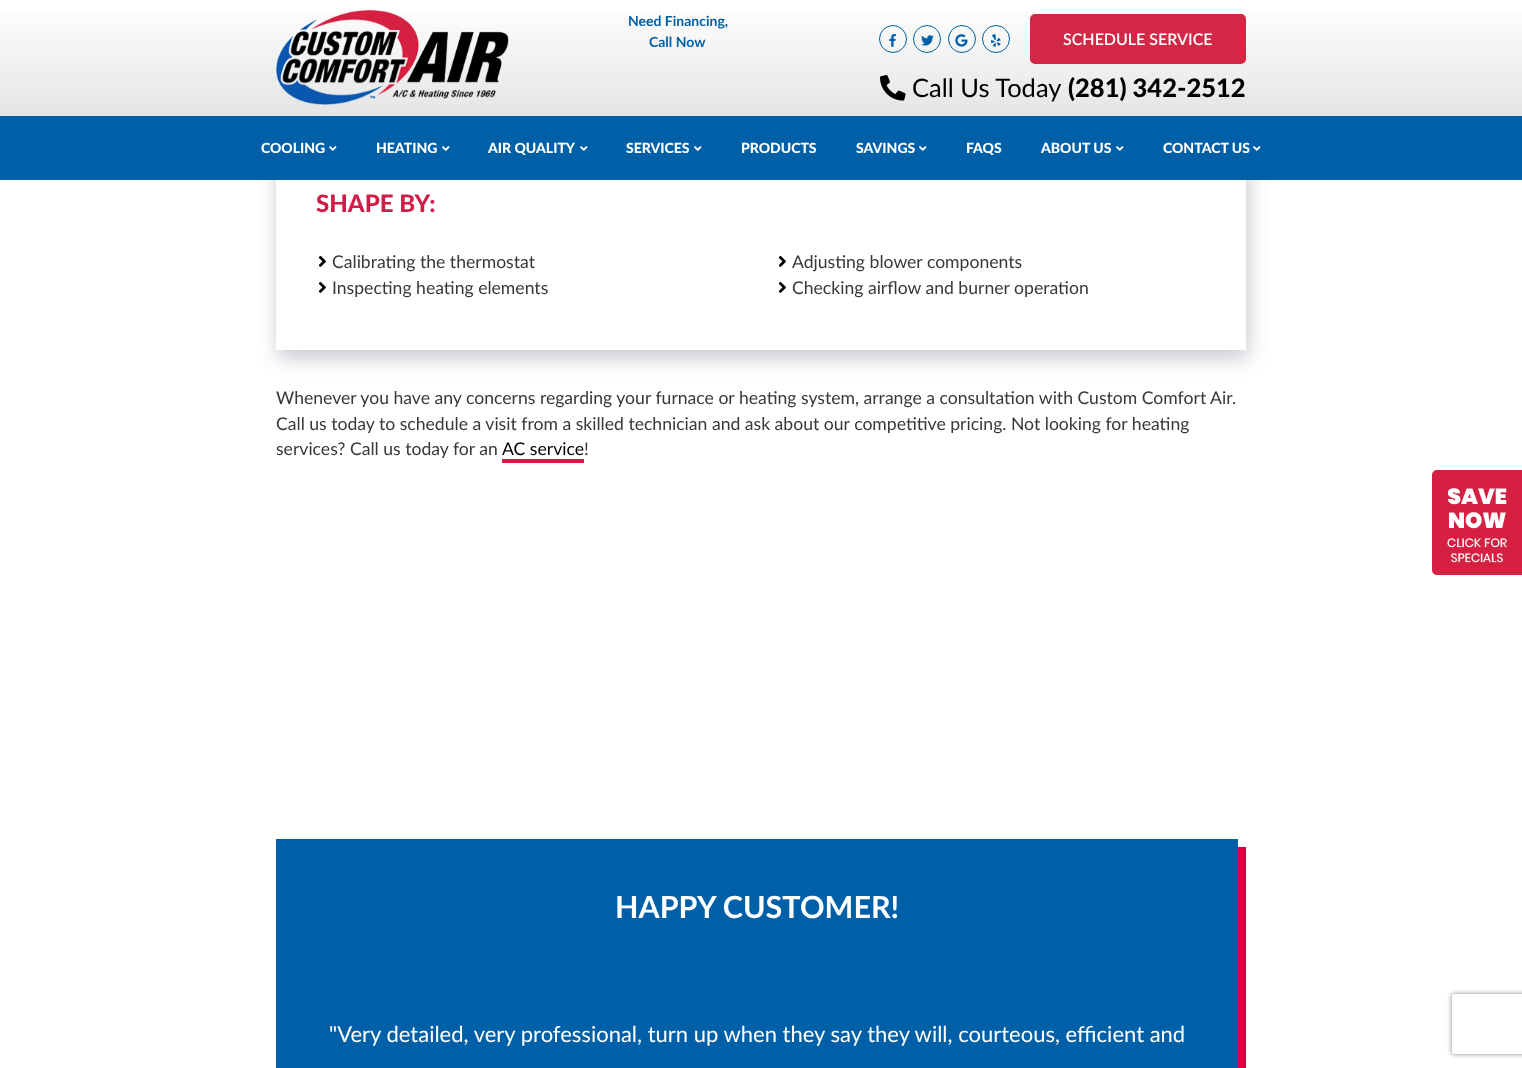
<!DOCTYPE html>
<meta charset="utf-8">
<style>body { margin: 0 } canvas { display: block }</style>
<canvas id="canvas" width="1522" height="1068"></canvas>
<script type="module">
  const canvas = document.getElementById("canvas");
  const ctx = canvas.getContext("2d");
  ctx.miterLimit = 4;
  ctx.fontKerning = "normal";
  async function loadImage(src) {
    const img = new Image();
    img.src = src;
    await img.decode();
    return img;
  }
  let gradient;

  ctx.fillStyle = "#ffffff";
  ctx.fillRect(0, 0, 1522, 1068);
  ctx.save();
  ctx.beginPath();
  ctx.moveTo(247, 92);
  ctx.lineTo(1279, 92);
  ctx.lineTo(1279, 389);
  ctx.lineTo(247, 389);
  ctx.closePath();
  ctx.moveTo(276, 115);
  ctx.lineTo(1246, 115);
  ctx.lineTo(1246, 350);
  ctx.lineTo(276, 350);
  ctx.closePath();
  ctx.clip("evenodd");
  ctx.fillStyle = "rgba(31, 32, 68, 0.25)";
  ctx.filter = "blur(10px)";
  ctx.beginPath();
  ctx.rect(278, 123, 970, 235);
  ctx.fill();
  ctx.filter = "none";
  ctx.restore();
  ctx.fillStyle = "#0060a7";
  ctx.fillRect(0, 116, 1522, 64);
  gradient = ctx.createLinearGradient(761, 0, 761, 116);
  gradient.addColorStop(0, "#ffffff");
  gradient.addColorStop(1, "#e5e5e5");
  ctx.fillStyle = gradient;
  ctx.fillRect(0, 11, 1522, 105);
  ctx.drawImage(await loadImage("img1.png"), 276, 10, 233, 95);
  ctx.font = "bold 14px Lato";
  ctx.fillStyle = "#0060a7";
  ctx.fillText("Need Financing,", 628, 26);
  ctx.fillText("Call Now", 649, 47);
  ctx.beginPath();
  ctx.arc(893, 39, 13.5, 0, Math.PI * 2);
  ctx.strokeStyle = "#0060a7";
  ctx.stroke();
  ctx.drawImage(await loadImage("img2.png"), 889, 34, 7, 13);
  ctx.beginPath();
  ctx.arc(927, 39, 13.5, 0, Math.PI * 2);
  ctx.stroke();
  ctx.drawImage(await loadImage("img3.png"), 921, 35, 13, 11);
  ctx.beginPath();
  ctx.arc(962, 39, 13.5, 0, Math.PI * 2);
  ctx.stroke();
  ctx.drawImage(await loadImage("img4.png"), 955, 34, 13, 13);
  ctx.beginPath();
  ctx.arc(996, 39, 13.5, 0, Math.PI * 2);
  ctx.stroke();
  ctx.drawImage(await loadImage("img5.png"), 991, 34, 10, 13);
  ctx.fillStyle = "#d22745";
  ctx.beginPath();
  ctx.roundRect(1031.5, 15.5, 213, 47, 3.5);
  ctx.fill();
  ctx.strokeStyle = "#d22745";
  ctx.lineWidth = 3;
  ctx.stroke();
  ctx.font = "600 16px Lato";
  ctx.fillStyle = "#ffffff";
  ctx.fillText("SCHEDULE SERVICE", 1063, 45);
  ctx.drawImage(await loadImage("img6.png"), 880, 75, 26, 26);
  ctx.font = "25.5px Lato";
  ctx.fillStyle = "#000000";
  ctx.fillText("Call Us Today", 912, 97);
  ctx.font = "900 25.5px Lato";
  ctx.fillText("(281) 342-2512", 1068, 97);
  ctx.font = "900 14px Lato";
  ctx.fillStyle = "#ffffff";
  ctx.fillText("COOLING", 261, 153);
  ctx.drawImage(await loadImage("img7.png"), 329, 146, 8, 5);
  ctx.fillText("HEATING", 376, 153);
  ctx.drawImage(await loadImage("img7.png"), 442, 146, 8, 5);
  ctx.fillText("AIR QUALITY", 488, 153);
  ctx.drawImage(await loadImage("img7.png"), 580, 146, 8, 5);
  ctx.fillText("SERVICES", 626, 153);
  ctx.drawImage(await loadImage("img7.png"), 694, 146, 8, 5);
  ctx.fillText("PRODUCTS", 741, 153);
  ctx.fillText("SAVINGS", 856, 153);
  ctx.drawImage(await loadImage("img7.png"), 919, 146, 8, 5);
  ctx.fillText("FAQS", 966, 153);
  ctx.fillText("ABOUT US", 1041, 153);
  ctx.drawImage(await loadImage("img7.png"), 1116, 146, 8, 5);
  ctx.fillText("CONTACT US", 1163, 153);
  ctx.drawImage(await loadImage("img7.png"), 1253, 146, 8, 5);
  ctx.font = "900 24px Lato";
  ctx.fillStyle = "#d01d48";
  ctx.fillText("SHAPE BY:", 316, 212);
  ctx.drawImage(await loadImage("img8.png"), 318, 255, 8, 12);
  ctx.font = "17.6px Lato";
  ctx.fillStyle = "#383838";
  ctx.fillText("Calibrating the thermostat", 332, 268);
  ctx.drawImage(await loadImage("img8.png"), 318, 281, 8, 12);
  ctx.fillText("Inspecting heating elements", 332, 294);
  ctx.drawImage(await loadImage("img8.png"), 778, 255, 8, 12);
  ctx.fillText("Adjusting blower components", 792, 268);
  ctx.drawImage(await loadImage("img8.png"), 778, 281, 8, 12);
  ctx.fillText("Checking airflow and burner operation", 792, 294);
  ctx.fillText("Whenever you have any concerns regarding your furnace or heating system, arrange a consultation with Custom Comfort Air.", 276, 404);
  ctx.fillText("Call us today to schedule a visit from a skilled technician and ask about our competitive pricing. Not looking for heating", 276, 430);
  ctx.fillText("services? Call us today for an", 276, 455);
  ctx.fillStyle = "#000000";
  ctx.fillText("AC service", 502, 455);
  ctx.fillStyle = "#d01d48";
  ctx.fillRect(502, 459, 82, 4);
  ctx.fillStyle = "#383838";
  ctx.fillText("!", 584, 455);
  ctx.fillStyle = "#d30042";
  ctx.beginPath();
  ctx.moveTo(284, 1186);
  ctx.lineTo(284, 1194);
  ctx.lineTo(1246, 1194);
  ctx.lineTo(1246, 847);
  ctx.lineTo(1238, 847);
  ctx.lineTo(1238, 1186);
  ctx.closePath();
  ctx.fill();
  ctx.fillStyle = "#0060a7";
  ctx.fillRect(276, 839, 962, 229);
  ctx.font = "bold 30.5px Lato";
  ctx.fillStyle = "#ffffff";
  ctx.fillText("HAPPY CUSTOMER!", 615, 918);
  ctx.font = "22px Lato";
  ctx.fillText("\"Very detailed, very professional, turn up when they say they will, courteous, efficient and", 329, 1042);
  ctx.drawImage(await loadImage("img9.png"), 1432, 470, 90, 105);
  ctx.save();
  ctx.beginPath();
  ctx.moveTo(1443, 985);
  ctx.lineTo(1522, 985);
  ctx.lineTo(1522, 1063);
  ctx.lineTo(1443, 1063);
  ctx.closePath();
  ctx.moveTo(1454, 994);
  ctx.lineTo(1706, 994);
  ctx.bezierCurveTo(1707, 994, 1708, 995, 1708, 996);
  ctx.lineTo(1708, 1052);
  ctx.bezierCurveTo(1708, 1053, 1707, 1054, 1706, 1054);
  ctx.lineTo(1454, 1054);
  ctx.bezierCurveTo(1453, 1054, 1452, 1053, 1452, 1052);
  ctx.lineTo(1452, 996);
  ctx.bezierCurveTo(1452, 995, 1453, 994, 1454, 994);
  ctx.closePath();
  ctx.clip("evenodd");
  ctx.fillStyle = "#808080";
  ctx.filter = "blur(2.5px)";
  ctx.beginPath();
  ctx.roundRect(1452, 994, 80, 60, 2);
  ctx.fill();
  ctx.filter = "none";
  ctx.restore();
</script>
